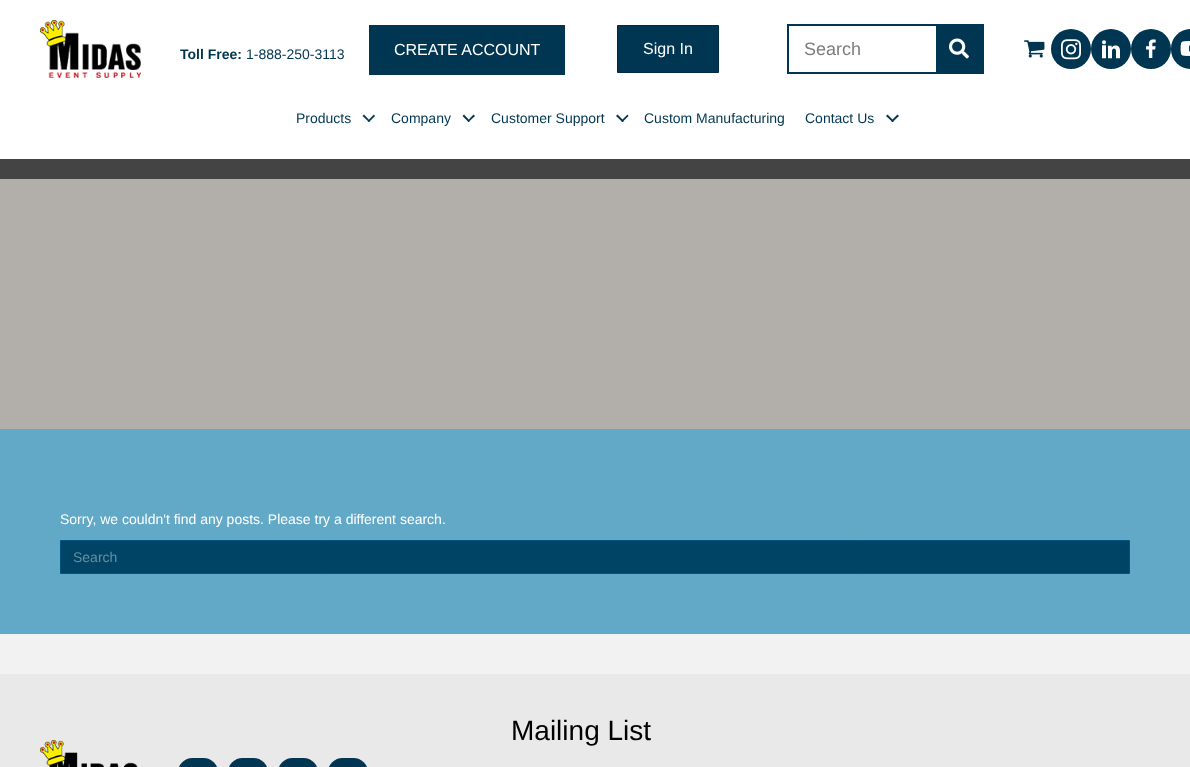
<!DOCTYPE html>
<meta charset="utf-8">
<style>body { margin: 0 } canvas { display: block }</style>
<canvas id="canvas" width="1190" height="767"></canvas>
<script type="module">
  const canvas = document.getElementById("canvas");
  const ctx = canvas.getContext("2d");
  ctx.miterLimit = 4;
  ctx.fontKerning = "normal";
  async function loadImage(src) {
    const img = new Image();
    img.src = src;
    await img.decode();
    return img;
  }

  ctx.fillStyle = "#f2f2f2";
  ctx.fillRect(0, 0, 1190, 767);
  ctx.fillStyle = "#ffffff";
  ctx.fillRect(0, 0, 1190, 159);
  ctx.drawImage(await loadImage("img1.png"), 40, 20, 101, 58);
  ctx.font = "bold 14px Liberation Sans";
  ctx.fillStyle = "#003651";
  ctx.fillText("Toll Free:", 180, 59);
  ctx.font = "14px Liberation Sans";
  ctx.fillText("1-888-250-3113", 246, 59);
  ctx.fillRect(369, 25, 196, 50);
  ctx.font = "16px Liberation Sans";
  ctx.fillStyle = "#ffffff";
  ctx.fillText("CREATE ACCOUNT", 394, 55);
  ctx.fillStyle = "#003651";
  ctx.beginPath();
  ctx.rect(617.5, 25.5, 101, 47);
  ctx.fill();
  ctx.strokeStyle = "#002a45";
  ctx.stroke();
  ctx.fillStyle = "#ffffff";
  ctx.fillText("Sign In", 643, 54);
  ctx.strokeStyle = "#003651";
  ctx.lineWidth = 2;
  ctx.strokeRect(788, 25, 195, 48);
  ctx.font = "18px Liberation Sans";
  ctx.fillStyle = "#7e7e7e";
  ctx.fillText("Search", 804, 55);
  ctx.fillStyle = "#003651";
  ctx.fillRect(936, 26, 46, 46);
  ctx.drawImage(await loadImage("img2.png"), 949, 38, 20, 21);
  ctx.drawImage(await loadImage("img3.png"), 1024, 40, 21, 18);
  ctx.beginPath();
  ctx.arc(1071, 49, 20, 0, Math.PI * 2);
  ctx.fill();
  ctx.drawImage(await loadImage("img4.png"), 1061, 39, 20, 21);
  ctx.beginPath();
  ctx.arc(1111, 49, 20, 0, Math.PI * 2);
  ctx.fill();
  ctx.drawImage(await loadImage("img5.png"), 1102, 40, 18, 19);
  ctx.beginPath();
  ctx.arc(1151, 49, 20, 0, Math.PI * 2);
  ctx.fill();
  ctx.drawImage(await loadImage("img6.png"), 1146, 39, 10, 19);
  ctx.beginPath();
  ctx.roundRect(1171, 29, 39, 40, 20);
  ctx.fill();
  ctx.drawImage(await loadImage("img7.png"), 1180, 41, 10, 15);
  ctx.font = "14px Liberation Sans";
  ctx.fillText("Products", 296, 123);
  ctx.beginPath();
  ctx.moveTo(374, 114.5);
  ctx.lineTo(375, 116);
  ctx.lineTo(369, 122);
  ctx.lineTo(367.5, 121);
  ctx.closePath();
  ctx.fill();
  ctx.beginPath();
  ctx.moveTo(364, 114.5);
  ctx.lineTo(370, 121);
  ctx.lineTo(369, 122);
  ctx.lineTo(362.5, 116);
  ctx.closePath();
  ctx.fill();
  ctx.fillText("Company", 391, 123);
  ctx.beginPath();
  ctx.moveTo(473.5, 114.5);
  ctx.lineTo(475, 116);
  ctx.lineTo(468.5, 122);
  ctx.lineTo(467.5, 121);
  ctx.closePath();
  ctx.fill();
  ctx.beginPath();
  ctx.moveTo(464, 114.5);
  ctx.lineTo(470, 121);
  ctx.lineTo(468.5, 122);
  ctx.lineTo(462.5, 116);
  ctx.closePath();
  ctx.fill();
  ctx.fillText("Customer Support", 491, 123);
  ctx.beginPath();
  ctx.moveTo(627.5, 114.5);
  ctx.lineTo(628.5, 116);
  ctx.lineTo(622.5, 122);
  ctx.lineTo(621, 121);
  ctx.closePath();
  ctx.fill();
  ctx.beginPath();
  ctx.moveTo(617.5, 114.5);
  ctx.lineTo(624, 121);
  ctx.lineTo(622.5, 122);
  ctx.lineTo(616, 116);
  ctx.closePath();
  ctx.fill();
  ctx.fillText("Custom Manufacturing", 644, 123);
  ctx.fillText("Contact Us", 805, 123);
  ctx.beginPath();
  ctx.moveTo(897.5, 114.5);
  ctx.lineTo(899, 116);
  ctx.lineTo(892.5, 122);
  ctx.lineTo(891, 121);
  ctx.closePath();
  ctx.fill();
  ctx.beginPath();
  ctx.moveTo(887.5, 114.5);
  ctx.lineTo(894, 121);
  ctx.lineTo(892.5, 122);
  ctx.lineTo(886, 116);
  ctx.closePath();
  ctx.fill();
  ctx.fillStyle = "#444444";
  ctx.fillRect(0, 159, 1190, 20);
  ctx.fillStyle = "#b2afab";
  ctx.fillRect(0, 179, 1190, 250);
  ctx.fillStyle = "#62a8c7";
  ctx.fillRect(0, 429, 1190, 205);
  ctx.fillStyle = "#ffffff";
  ctx.fillText("Sorry, we couldn't find any posts. Please try a different search.", 60, 524);
  ctx.fillStyle = "#004465";
  ctx.beginPath();
  ctx.rect(60.5, 540.5, 1069, 33);
  ctx.fill();
  ctx.strokeStyle = "#00557f";
  ctx.lineWidth = 1;
  ctx.stroke();
  ctx.fillStyle = "#668fa3";
  ctx.fillText("Search", 73, 562);
  ctx.fillStyle = "#e9e9e9";
  ctx.fillRect(0, 674, 1190, 93);
  ctx.font = "28px Liberation Sans";
  ctx.fillStyle = "#000000";
  ctx.fillText("Mailing List", 511, 740);
  ctx.drawImage(await loadImage("img8.png"), 40, 740, 98, 27);
  ctx.fillStyle = "#003651";
  ctx.beginPath();
  ctx.roundRect(178, 758, 40, 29, 20);
  ctx.fill();
  ctx.beginPath();
  ctx.roundRect(228, 758, 40, 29, 20);
  ctx.fill();
  ctx.beginPath();
  ctx.roundRect(278, 758, 40, 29, 20);
  ctx.fill();
  ctx.beginPath();
  ctx.roundRect(328, 758, 40, 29, 20);
  ctx.fill();
</script>
